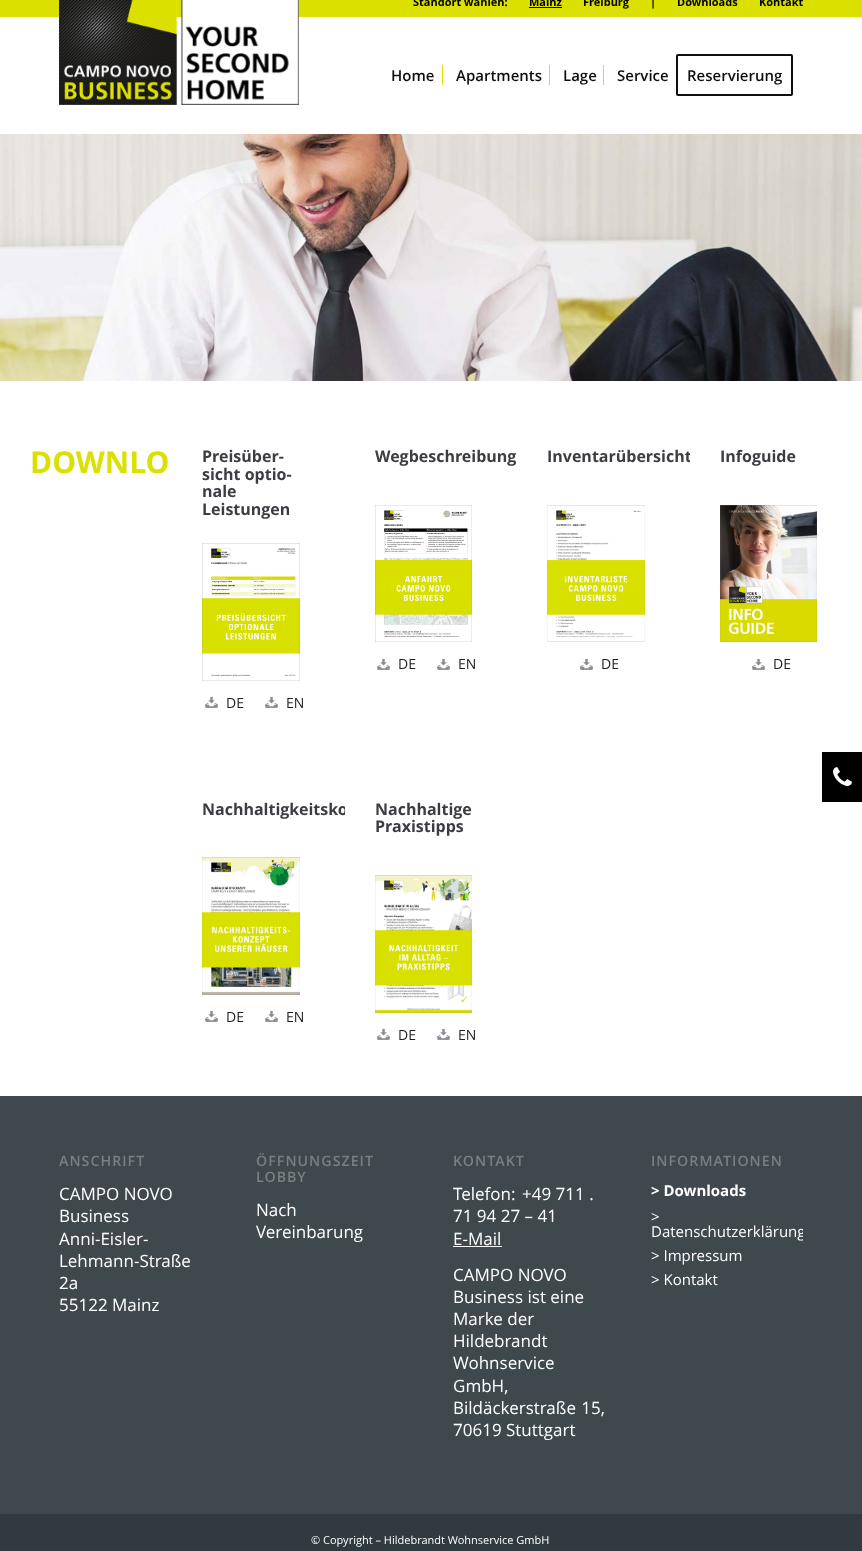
<!DOCTYPE html>
<meta charset="utf-8">
<style>body { margin: 0 } canvas { display: block }</style>
<canvas id="canvas" width="862" height="1551"></canvas>
<script type="module">
  const canvas = document.getElementById("canvas");
  const ctx = canvas.getContext("2d");
  ctx.miterLimit = 4;
  ctx.fontKerning = "normal";
  async function loadImage(src) {
    const img = new Image();
    img.src = src;
    await img.decode();
    return img;
  }

  ctx.fillStyle = "#ffffff";
  ctx.fillRect(0, 0, 862, 1551);
  ctx.fillStyle = "#dce000";
  ctx.fillRect(0, 0, 862, 17);
  ctx.font = "bold 11px Open Sans";
  ctx.fillStyle = "#000000";
  ctx.fillText("Standort wählen:", 413, 6);
  ctx.fillText("Mainz", 529, 6);
  ctx.fillRect(529, 7, 33, 1);
  ctx.fillText("Freiburg", 583, 6);
  ctx.fillText("|", 650, 6);
  ctx.fillText("Downloads", 677, 6);
  ctx.fillText("Kontakt", 759, 6);
  ctx.drawImage(await loadImage("img1.png"), 59, 0, 240, 105);
  ctx.font = "600 15px Open Sans";
  ctx.fillStyle = "#0f0f0f";
  ctx.fillText("Home", 391, 81);
  ctx.fillText("Apartments", 456, 81);
  ctx.fillStyle = "#dce000";
  ctx.fillRect(442, 65, 1, 20);
  ctx.fillStyle = "#0f0f0f";
  ctx.fillText("Lage", 563, 81);
  ctx.fillStyle = "#dce000";
  ctx.fillRect(549, 65, 1, 20);
  ctx.fillStyle = "#0f0f0f";
  ctx.fillText("Service", 617, 81);
  ctx.fillStyle = "#dce000";
  ctx.fillRect(603, 65, 1, 20);
  ctx.beginPath();
  ctx.roundRect(677, 55, 115, 40, 1);
  ctx.strokeStyle = "#0f0f0f";
  ctx.lineWidth = 2;
  ctx.stroke();
  ctx.fillStyle = "#0f0f0f";
  ctx.fillText("Reservierung", 687, 81);
  ctx.drawImage(await loadImage("img2.png"), 0, 134, 862, 247);
  ctx.font = "bold 30px Open Sans";
  ctx.fillStyle = "#dce000";
  ctx.fillText("DOWNLO", 30, 473);
  ctx.font = "bold 16px Open Sans";
  ctx.fillStyle = "#3c3c43";
  ctx.fillText("Preisüber-", 202, 462);
  ctx.fillText("sicht optio-", 202, 480);
  ctx.fillText("nale", 202, 497);
  ctx.fillText("Leistungen", 202, 515);
  ctx.drawImage(await loadImage("img3.png"), 202, 543, 98, 138);
  ctx.drawImage(await loadImage("img4.png"), 205, 696, 13, 12);
  ctx.font = "14px Open Sans";
  ctx.fillStyle = "#1f1f1f";
  ctx.fillText("DE", 226, 708);
  ctx.drawImage(await loadImage("img4.png"), 265, 696, 13, 12);
  ctx.fillText("EN", 286, 708);
  ctx.font = "bold 16px Open Sans";
  ctx.fillStyle = "#3c3c43";
  ctx.fillText("Wegbeschreibung", 375, 462);
  ctx.drawImage(await loadImage("img5.png"), 375, 505, 97, 137);
  ctx.drawImage(await loadImage("img4.png"), 377, 658, 13, 12);
  ctx.font = "14px Open Sans";
  ctx.fillStyle = "#1f1f1f";
  ctx.fillText("DE", 398, 669);
  ctx.drawImage(await loadImage("img4.png"), 437, 658, 13, 12);
  ctx.fillText("EN", 458, 669);
  ctx.save();
  ctx.beginPath();
  ctx.rect(517, 381, 173, 384);
  ctx.clip();
  ctx.font = "bold 16px Open Sans";
  ctx.fillStyle = "#3c3c43";
  ctx.fillText("Inventarübersicht", 547, 462);
  ctx.restore();
  ctx.drawImage(await loadImage("img6.png"), 547, 505, 98, 137);
  ctx.drawImage(await loadImage("img4.png"), 580, 658, 13, 12);
  ctx.fillText("DE", 601, 669);
  ctx.font = "bold 16px Open Sans";
  ctx.fillStyle = "#3c3c43";
  ctx.fillText("Infoguide", 720, 462);
  ctx.drawImage(await loadImage("img7.png"), 720, 505, 97, 137);
  ctx.drawImage(await loadImage("img4.png"), 752, 658, 13, 12);
  ctx.font = "14px Open Sans";
  ctx.fillStyle = "#1f1f1f";
  ctx.fillText("DE", 773, 669);
  ctx.save();
  ctx.beginPath();
  ctx.rect(172, 765, 173, 331);
  ctx.clip();
  ctx.font = "bold 16px Open Sans";
  ctx.fillStyle = "#3c3c43";
  ctx.fillText("Nachhaltigkeitsko", 202, 815);
  ctx.restore();
  ctx.drawImage(await loadImage("img8.png"), 202, 857, 98, 138);
  ctx.drawImage(await loadImage("img4.png"), 205, 1010, 13, 12);
  ctx.fillText("DE", 226, 1022);
  ctx.drawImage(await loadImage("img4.png"), 265, 1010, 13, 12);
  ctx.fillText("EN", 286, 1022);
  ctx.font = "bold 16px Open Sans";
  ctx.fillStyle = "#3c3c43";
  ctx.fillText("Nachhaltige", 375, 815);
  ctx.fillText("Praxistipps", 375, 832);
  ctx.drawImage(await loadImage("img9.png"), 375, 875, 97, 138);
  ctx.drawImage(await loadImage("img4.png"), 377, 1028, 13, 12);
  ctx.font = "14px Open Sans";
  ctx.fillStyle = "#1f1f1f";
  ctx.fillText("DE", 398, 1040);
  ctx.drawImage(await loadImage("img4.png"), 437, 1028, 13, 12);
  ctx.fillText("EN", 458, 1040);
  ctx.fillStyle = "#3e484d";
  ctx.fillRect(0, 1096, 862, 418);
  ctx.letterSpacing = "1px";
  ctx.font = "600 14.25px Open Sans";
  ctx.fillStyle = "#798083";
  ctx.fillText("ANSCHRIFT", 59, 1166);
  ctx.letterSpacing = "0px";
  ctx.font = "17px Open Sans";
  ctx.fillStyle = "#ffffff";
  ctx.fillText("CAMPO NOVO", 59, 1200);
  ctx.fillText("Business", 59, 1222);
  ctx.fillText("Anni-Eisler-", 59, 1245);
  ctx.fillText("Lehmann-Straße", 59, 1267);
  ctx.fillText("2a", 59, 1289);
  ctx.fillText("55122 Mainz", 59, 1311);
  ctx.letterSpacing = "1px";
  ctx.font = "600 14.25px Open Sans";
  ctx.fillStyle = "#798083";
  ctx.fillText("ÖFFNUNGSZEIT", 256, 1166);
  ctx.fillText("LOBBY", 256, 1182);
  ctx.letterSpacing = "0px";
  ctx.font = "17px Open Sans";
  ctx.fillStyle = "#ffffff";
  ctx.fillText("Nach", 256, 1216);
  ctx.fillText("Vereinbarung", 256, 1238);
  ctx.letterSpacing = "1px";
  ctx.font = "600 14.25px Open Sans";
  ctx.fillStyle = "#798083";
  ctx.fillText("KONTAKT", 453, 1166);
  ctx.letterSpacing = "0px";
  ctx.font = "17px Open Sans";
  ctx.fillStyle = "#ffffff";
  ctx.fillText("Telefon:", 453, 1200);
  ctx.fillText("+49 711 .", 522, 1200);
  ctx.fillText("71 94 27 – 41", 453, 1222);
  ctx.fillText("E-Mail", 453, 1245);
  ctx.fillRect(453, 1246, 49, 1);
  ctx.fillText("CAMPO NOVO", 453, 1281);
  ctx.fillText("Business ist eine", 453, 1303);
  ctx.fillText("Marke der", 453, 1325);
  ctx.fillText("Hildebrandt", 453, 1347);
  ctx.fillText("Wohnservice", 453, 1369);
  ctx.fillText("GmbH,", 453, 1392);
  ctx.wordSpacing = "1px";
  ctx.fillText("Bildäckerstraße 15,", 453, 1414);
  ctx.wordSpacing = "0px";
  ctx.fillText("70619 Stuttgart", 453, 1436);
  ctx.letterSpacing = "1px";
  ctx.font = "600 14.25px Open Sans";
  ctx.fillStyle = "#798083";
  ctx.fillText("INFORMATIONEN", 651, 1166);
  ctx.letterSpacing = "0px";
  ctx.font = "bold 15px Open Sans";
  ctx.fillStyle = "#ffffff";
  ctx.fillText("> Downloads", 651, 1196);
  ctx.font = "15px Open Sans";
  ctx.fillText(">", 651, 1222);
  ctx.save();
  ctx.beginPath();
  ctx.rect(651, 1141, 152, 151);
  ctx.clip();
  ctx.fillText("Datenschutzerklärung", 651, 1237);
  ctx.restore();
  ctx.fillText("> Impressum", 651, 1261);
  ctx.fillText("> Kontakt", 651, 1285);
  ctx.fillStyle = "#313a3e";
  ctx.fillRect(0, 1514, 862, 37);
  ctx.font = "11px Open Sans";
  ctx.fillStyle = "#ffffff";
  ctx.fillText("© Copyright – Hildebrandt Wohnservice GmbH", 311, 1544);
  ctx.fillStyle = "#000000";
  ctx.fillRect(822, 752, 40, 50);
  ctx.drawImage(await loadImage("img10.png"), 833, 767, 19, 19);
</script>
